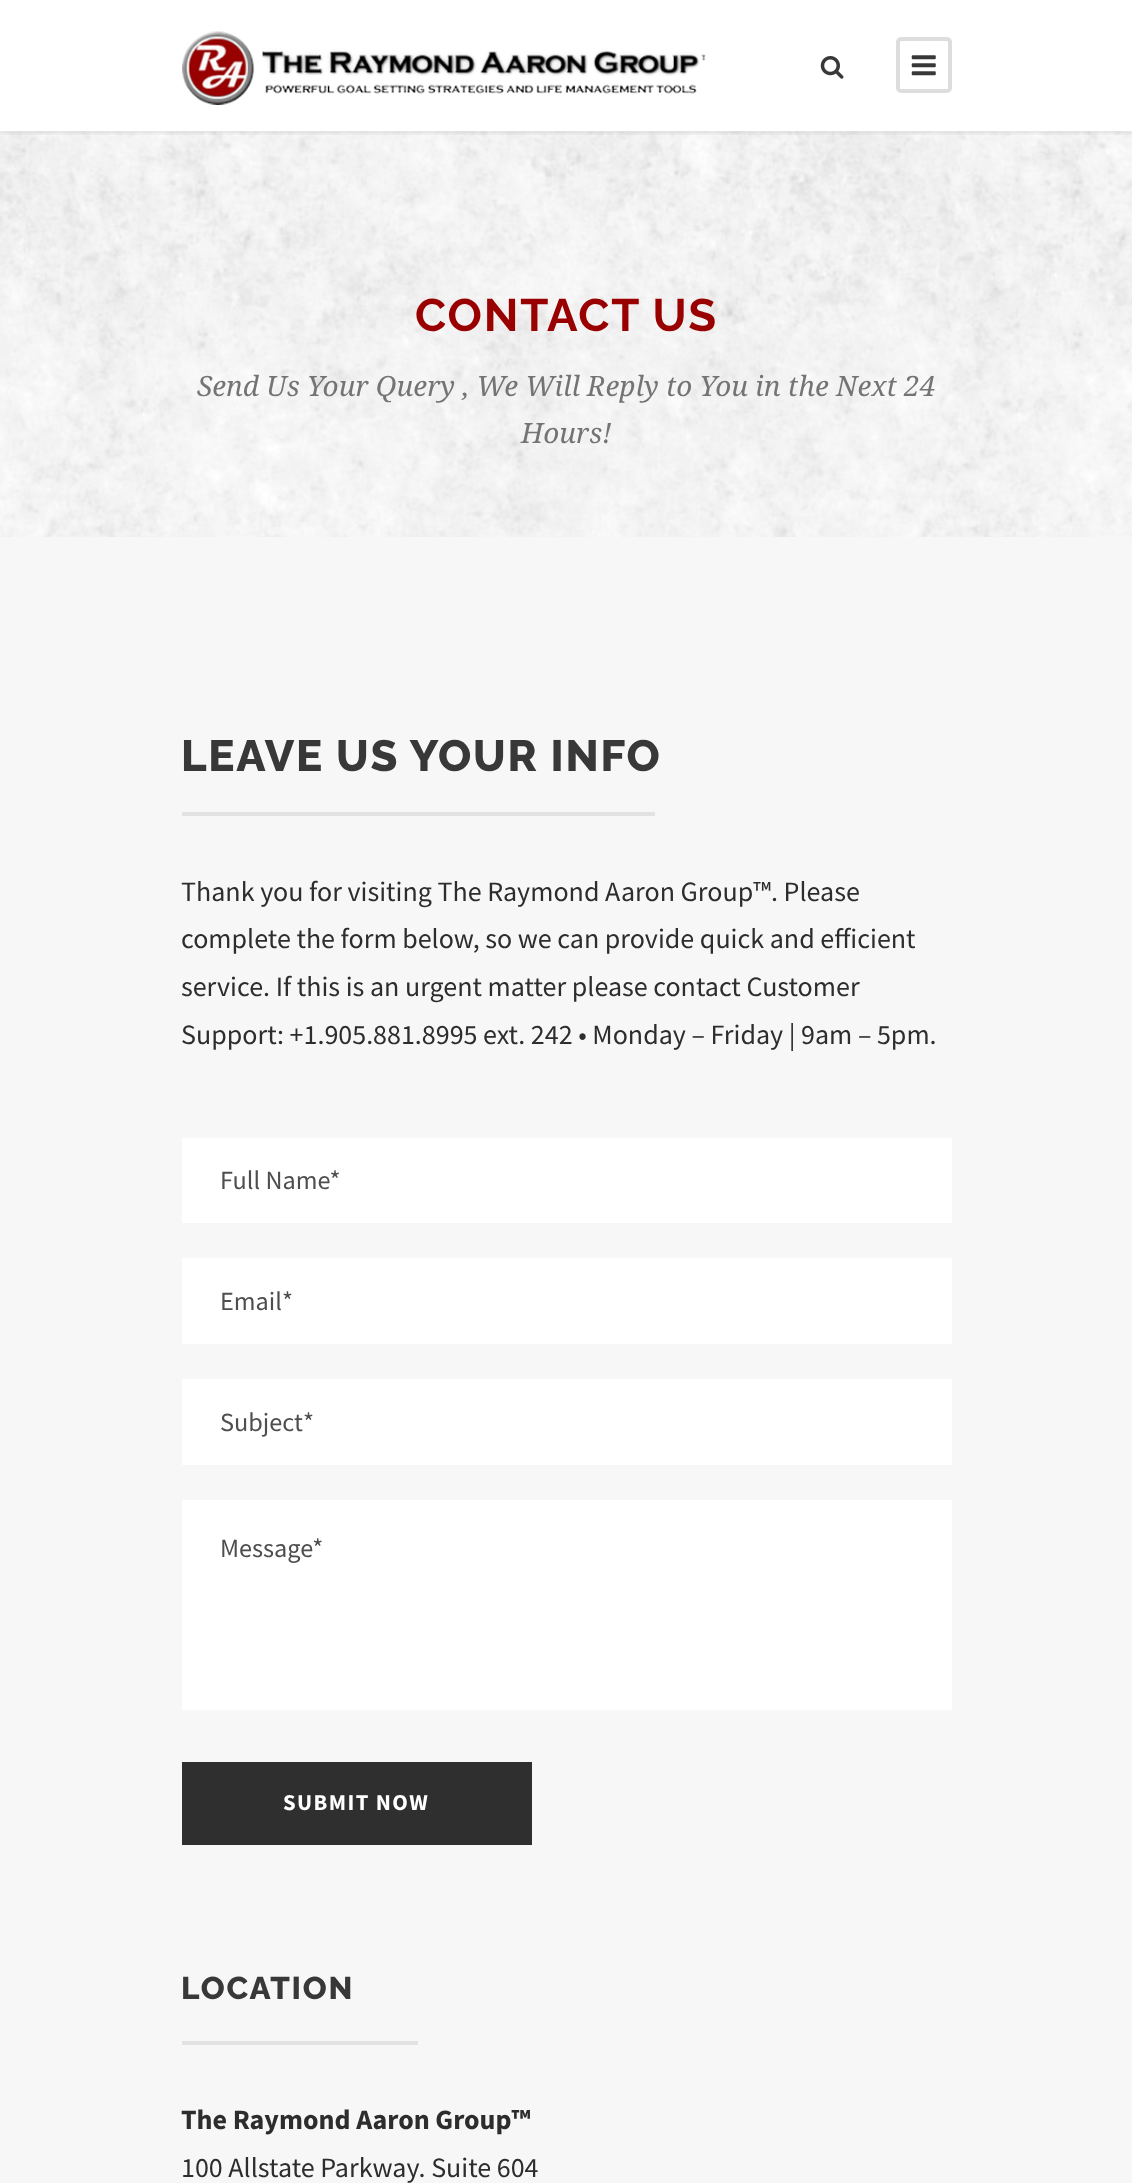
<!DOCTYPE html>
<meta charset="utf-8">
<style>body { margin: 0 } canvas { display: block }</style>
<canvas id="canvas" width="1132" height="2183"></canvas>
<script type="module">
  const canvas = document.getElementById("canvas");
  const ctx = canvas.getContext("2d");
  ctx.miterLimit = 4;
  ctx.fontKerning = "normal";
  async function loadImage(src) {
    const img = new Image();
    img.src = src;
    await img.decode();
    return img;
  }

  ctx.fillStyle = "#ffffff";
  ctx.fillRect(0, 0, 1132, 2183);
  ctx.drawImage(await loadImage("img4.png"), 0, 131, 1132, 406);
  ctx.save();
  ctx.beginPath();
  ctx.rect(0, 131, 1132, 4);
  ctx.clip();
  ctx.fillStyle = "rgba(0, 0, 0, 0.1)";
  ctx.filter = "blur(2px)";
  ctx.beginPath();
  ctx.rect(0, 2, 1132, 131);
  ctx.fill();
  ctx.filter = "none";
  ctx.restore();
  ctx.drawImage(await loadImage("img1.png"), 182, 31, 524, 74);
  ctx.drawImage(await loadImage("img2.png"), 820, 56, 24, 23);
  ctx.beginPath();
  ctx.roundRect(898, 39, 52, 52, 3);
  ctx.strokeStyle = "#dddddd";
  ctx.lineWidth = 4;
  ctx.stroke();
  ctx.drawImage(await loadImage("img3.png"), 911, 55, 25, 21);
  ctx.letterSpacing = "1.75px";
  ctx.font = "bold 45.5px Raleway";
  ctx.fillStyle = "#990100";
  ctx.fillText("CONTACT US", 415, 331);
  ctx.letterSpacing = "0px";
  ctx.font = "italic 28px Droid Serif";
  ctx.fillStyle = "#747474";
  ctx.fillText("Send Us Your Query , We Will Reply to You in the Next 24", 197, 396);
  ctx.fillText("Hours!", 521, 443);
  ctx.fillStyle = "#f7f7f7";
  ctx.fillRect(0, 537, 1132, 1646);
  ctx.letterSpacing = "1.75px";
  ctx.font = "800 43.75px Raleway";
  ctx.fillStyle = "#383838";
  ctx.fillText("LEAVE US YOUR INFO", 181, 771);
  ctx.fillStyle = "#e2e2e2";
  ctx.fillRect(182, 812, 473, 4);
  ctx.letterSpacing = "0px";
  ctx.font = "28px Source Sans Pro";
  ctx.fillStyle = "#2d2d2d";
  ctx.fillText("Thank you for visiting The Raymond Aaron Group™. Please", 181, 901);
  ctx.fillText("complete the form below, so we can provide quick and efficient", 181, 948);
  ctx.fillText("service. If this is an urgent matter please contact Customer", 181, 996);
  ctx.fillText("Support: +1.905.881.8995 ext. 242 • Monday – Friday | 9am – 5pm.", 181, 1044);
  ctx.fillStyle = "#ffffff";
  ctx.fillRect(182, 1138, 770, 85);
  ctx.font = "26.25px Source Sans Pro";
  ctx.fillStyle = "#4e4e4e";
  ctx.fillText("Full Name*", 220, 1189);
  ctx.fillStyle = "#ffffff";
  ctx.fillRect(182, 1258, 770, 86);
  ctx.fillStyle = "#4e4e4e";
  ctx.fillText("Email*", 220, 1310);
  ctx.fillStyle = "#ffffff";
  ctx.fillRect(182, 1379, 770, 86);
  ctx.fillStyle = "#4e4e4e";
  ctx.fillText("Subject*", 220, 1431);
  ctx.fillStyle = "#ffffff";
  ctx.fillRect(182, 1500, 770, 210);
  ctx.fillStyle = "#4e4e4e";
  ctx.fillText("Message*", 220, 1557);
  ctx.fillStyle = "#2f2f2f";
  ctx.fillRect(182, 1762, 350, 83);
  ctx.letterSpacing = "1.4px";
  ctx.font = "bold 22.75px Source Sans Pro";
  ctx.fillStyle = "#ffffff";
  ctx.fillText("SUBMIT NOW", 283, 1810);
  ctx.letterSpacing = "1.75px";
  ctx.font = "800 31.5px Raleway";
  ctx.fillStyle = "#383838";
  ctx.fillText("LOCATION", 181, 1999);
  ctx.fillStyle = "#e2e2e2";
  ctx.fillRect(182, 2041, 236, 4);
  ctx.letterSpacing = "0px";
  ctx.font = "bold 28px Source Sans Pro";
  ctx.fillStyle = "#2d2d2d";
  ctx.fillText("The Raymond Aaron Group™", 181, 2129);
  ctx.font = "28px Source Sans Pro";
  ctx.fillText("100 Allstate Parkway. Suite 604", 181, 2177);
</script>
